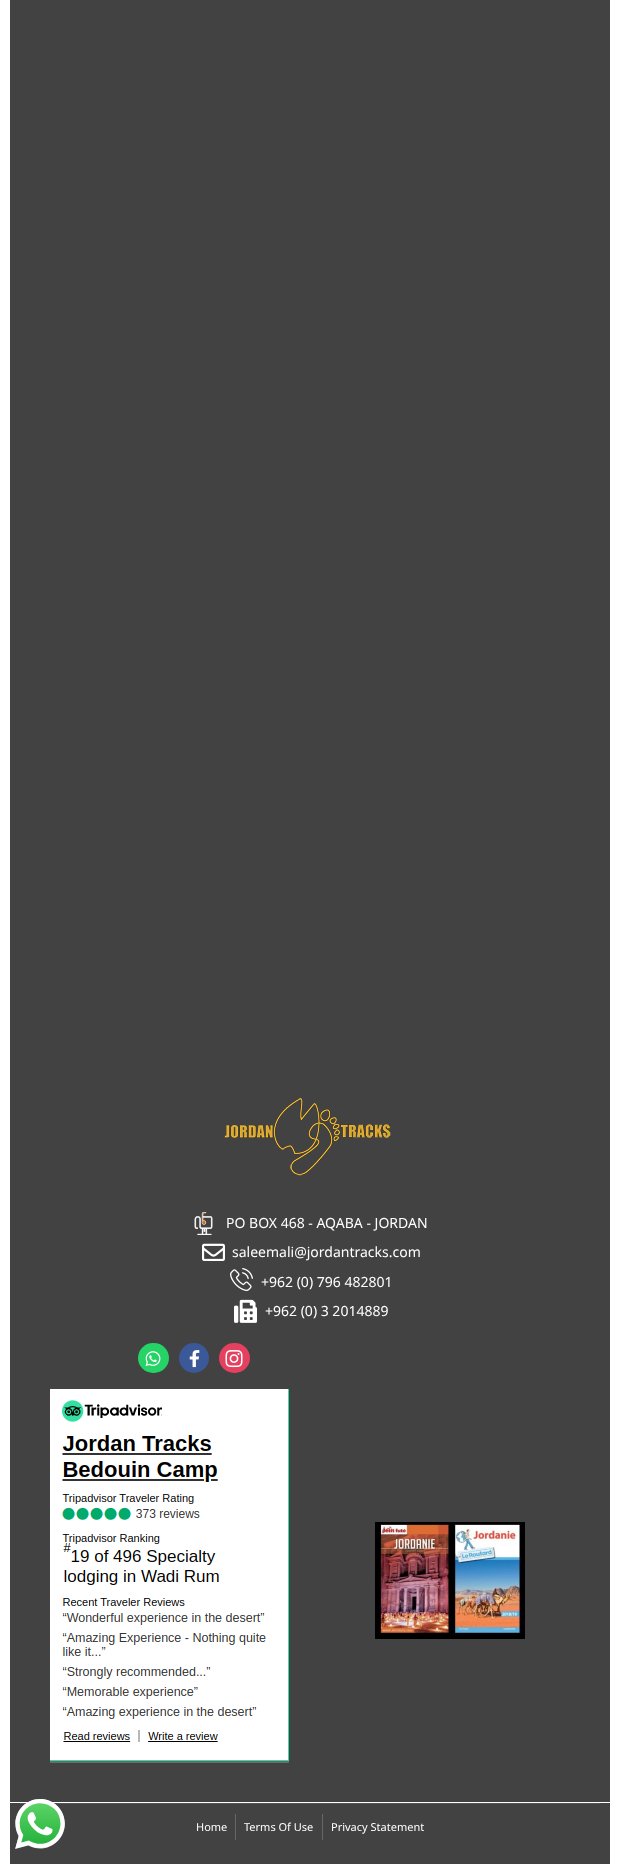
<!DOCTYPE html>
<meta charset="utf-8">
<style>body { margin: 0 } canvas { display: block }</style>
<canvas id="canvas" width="620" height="1864"></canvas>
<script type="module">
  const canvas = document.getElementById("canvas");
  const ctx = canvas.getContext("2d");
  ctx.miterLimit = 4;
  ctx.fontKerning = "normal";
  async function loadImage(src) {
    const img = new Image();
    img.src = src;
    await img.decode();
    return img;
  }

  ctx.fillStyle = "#ffffff";
  ctx.fillRect(0, 0, 620, 1864);
  ctx.fillStyle = "#424242";
  ctx.fillRect(10, 0, 600, 1802);
  ctx.fillRect(10, 1803, 600, 61);
  ctx.fillStyle = "#555555";
  ctx.fillRect(20, 1803, 580, 1);
  ctx.drawImage(await loadImage("img1.png"), 15, 1799, 50, 50);
  ctx.drawImage(await loadImage("img2.png"), 224, 1098, 167, 78);
  ctx.drawImage(await loadImage("img3.png"), 194, 1212, 19, 23);
  ctx.font = "14px Noto Sans";
  ctx.fillStyle = "#ffffff";
  ctx.fillText("PO BOX 468 - AQABA - JORDAN", 226, 1228);
  ctx.drawImage(await loadImage("img4.png"), 202, 1243, 23, 18);
  ctx.fillText("saleemali@jordantracks.com", 232, 1257);
  ctx.drawImage(await loadImage("img5.png"), 230, 1268, 23, 23);
  ctx.fillText("+962 (0) 796 482801", 261, 1287);
  ctx.drawImage(await loadImage("img6.png"), 234, 1299, 23, 24);
  ctx.fillText("+962 (0) 3 2014889", 265, 1316);
  ctx.fillStyle = "#25d366";
  ctx.beginPath();
  ctx.roundRect(138, 1343, 31, 30, 15);
  ctx.fill();
  ctx.drawImage(await loadImage("img7.png"), 145, 1351, 16, 15);
  ctx.fillStyle = "#3b5998";
  ctx.beginPath();
  ctx.arc(194, 1358, 15, 0, Math.PI * 2);
  ctx.fill();
  ctx.drawImage(await loadImage("img8.png"), 189, 1350, 11, 18);
  ctx.fillStyle = "#e4405f";
  ctx.beginPath();
  ctx.roundRect(219, 1343, 31, 30, 15);
  ctx.fill();
  ctx.drawImage(await loadImage("img9.png"), 225, 1350, 18, 18);
  ctx.drawImage(await loadImage("img10.png"), 50, 1389, 239, 374);
  ctx.drawImage(await loadImage("img11.png"), 375, 1522, 150, 117);
  ctx.font = "11px Noto Sans";
  ctx.fillStyle = "#ffffff";
  ctx.fillText("Home", 196, 1831);
  ctx.fillStyle = "#676767";
  ctx.fillRect(235, 1814, 1, 26);
  ctx.fillStyle = "#ffffff";
  ctx.fillText("Terms Of Use", 244, 1831);
  ctx.fillStyle = "#676767";
  ctx.fillRect(322, 1814, 1, 26);
  ctx.fillStyle = "#ffffff";
  ctx.fillText("Privacy Statement", 331, 1831);
</script>
